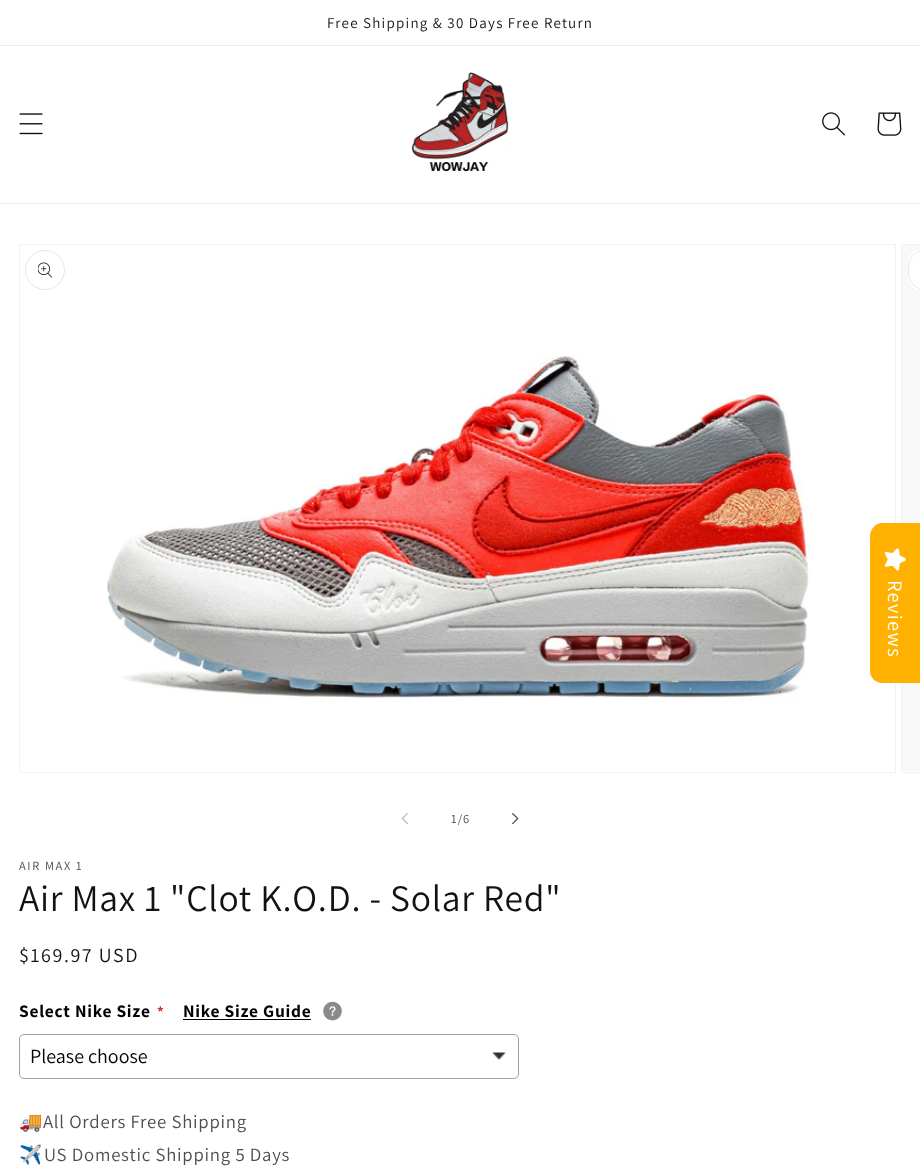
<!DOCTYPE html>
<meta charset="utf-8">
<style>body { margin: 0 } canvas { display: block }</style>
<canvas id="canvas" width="920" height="1172"></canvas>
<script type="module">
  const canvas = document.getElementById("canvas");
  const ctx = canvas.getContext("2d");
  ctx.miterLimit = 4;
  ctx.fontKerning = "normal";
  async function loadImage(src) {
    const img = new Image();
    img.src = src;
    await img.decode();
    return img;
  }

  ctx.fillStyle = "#ffffff";
  ctx.fillRect(0, 0, 920, 1172);
  ctx.fillStyle = "#ececec";
  ctx.fillRect(0, 45, 920, 1);
  ctx.letterSpacing = "1.25px";
  ctx.font = "15px Assistant";
  ctx.fillStyle = "#121212";
  ctx.fillText("Free Shipping & 30 Days Free Return", 327, 28);
  ctx.fillStyle = "#ececec";
  ctx.fillRect(0, 203, 920, 1);
  ctx.drawImage(await loadImage("img1.png"), 19, 113, 24, 22);
  ctx.drawImage(await loadImage("img2.png"), 411, 72, 98, 100);
  ctx.drawImage(await loadImage("img3.png"), 822, 112, 23, 24);
  ctx.drawImage(await loadImage("img4.png"), 877, 112, 25, 24);
  ctx.strokeStyle = "#f3f3f3";
  ctx.strokeRect(19.5, 244.5, 876, 528);
  ctx.strokeRect(901.5, 244.5, 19, 528);
  ctx.fillStyle = "#f8f8f8";
  ctx.fillRect(902, 245, 18, 526);
  ctx.fillStyle = "#ffb102";
  ctx.beginPath();
  ctx.moveTo(920, 523);
  ctx.lineTo(920, 683);
  ctx.lineTo(882, 683);
  ctx.bezierCurveTo(876, 683, 870, 678, 870, 671);
  ctx.lineTo(870, 536);
  ctx.bezierCurveTo(870, 529, 876, 523, 882, 523);
  ctx.closePath();
  ctx.fill();
  ctx.drawImage(await loadImage("img5.png"), 884, 548, 22, 23);
  ctx.font = "20.5px Assistant";
  ctx.fillStyle = "#ffffff";
  ctx.save();
  ctx.translate(888, 580);
  ctx.rotate(90 * Math.PI / 180);
  ctx.fillText("Reviews", 0, 0);
  ctx.restore();
  ctx.drawImage(await loadImage("img6.png"), 107, 355, 705, 346);
  ctx.beginPath();
  ctx.arc(45, 270, 19.5, 0, Math.PI * 2);
  ctx.strokeStyle = "#e7e7e7";
  ctx.stroke();
  ctx.drawImage(await loadImage("img7.png"), 38, 262, 14, 16);
  ctx.beginPath();
  ctx.roundRect(908, 250, 12, 40, [20, 0, 0, 20]);
  ctx.fill();
  ctx.beginPath();
  ctx.roundRect(908.5, 250.5, 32, 39, 19.5);
  ctx.strokeStyle = "rgba(18, 18, 18, 0.1)";
  ctx.stroke();
  ctx.drawImage(await loadImage("img8.png"), 401, 813, 7, 12);
  ctx.letterSpacing = "1px";
  ctx.font = "12.5px Assistant";
  ctx.fillStyle = "#4d4d4d";
  ctx.fillText("1/6", 451, 823);
  ctx.drawImage(await loadImage("img9.png"), 512, 813, 7, 12);
  ctx.letterSpacing = "1.6px";
  ctx.fillText("AIR MAX 1", 19, 870);
  ctx.letterSpacing = "0.75px";
  ctx.font = "37.5px Assistant";
  ctx.fillStyle = "#121212";
  ctx.fillText("Air Max 1 \"Clot K.O.D. - Solar Red\"", 19, 911);
  ctx.letterSpacing = "1.6px";
  ctx.font = "20px Assistant";
  ctx.fillText("$169.97 USD", 19, 962);
  ctx.letterSpacing = "0.75px";
  ctx.font = "bold 17.5px Assistant";
  ctx.fillStyle = "#000000";
  ctx.fillText("Select Nike Size", 19, 1017);
  ctx.font = "bold 15px Assistant";
  ctx.fillStyle = "#e02b27";
  ctx.fillText("*", 157, 1017);
  ctx.font = "bold 17.5px Assistant";
  ctx.fillStyle = "#000000";
  ctx.fillText("Nike Size Guide", 183, 1017);
  ctx.fillRect(183, 1019, 128, 1);
  ctx.drawImage(await loadImage("img10.png"), 323, 1001, 19, 20);
  ctx.drawImage(await loadImage("img11.png"), 492, 1052, 14, 9);
  ctx.beginPath();
  ctx.roundRect(19.5, 1034.5, 499, 44, 4.5);
  ctx.strokeStyle = "#a0a0a0";
  ctx.stroke();
  ctx.letterSpacing = "0px";
  ctx.font = "20px Assistant";
  ctx.fillText("Please choose", 30, 1063);
  ctx.letterSpacing = "0.75px";
  ctx.font = "18.75px Noto Color Emoji";
  ctx.fillStyle = "#4d4d4d";
  ctx.fillText("🚚", 19, 1128);
  ctx.font = "18.75px Assistant";
  ctx.fillText("All Orders Free Shipping", 43, 1128);
  ctx.font = "18.75px Noto Color Emoji";
  ctx.fillText("✈️", 19, 1161);
  ctx.font = "18.75px Assistant";
  ctx.fillText("US Domestic Shipping 5 Days", 44, 1161);
</script>
